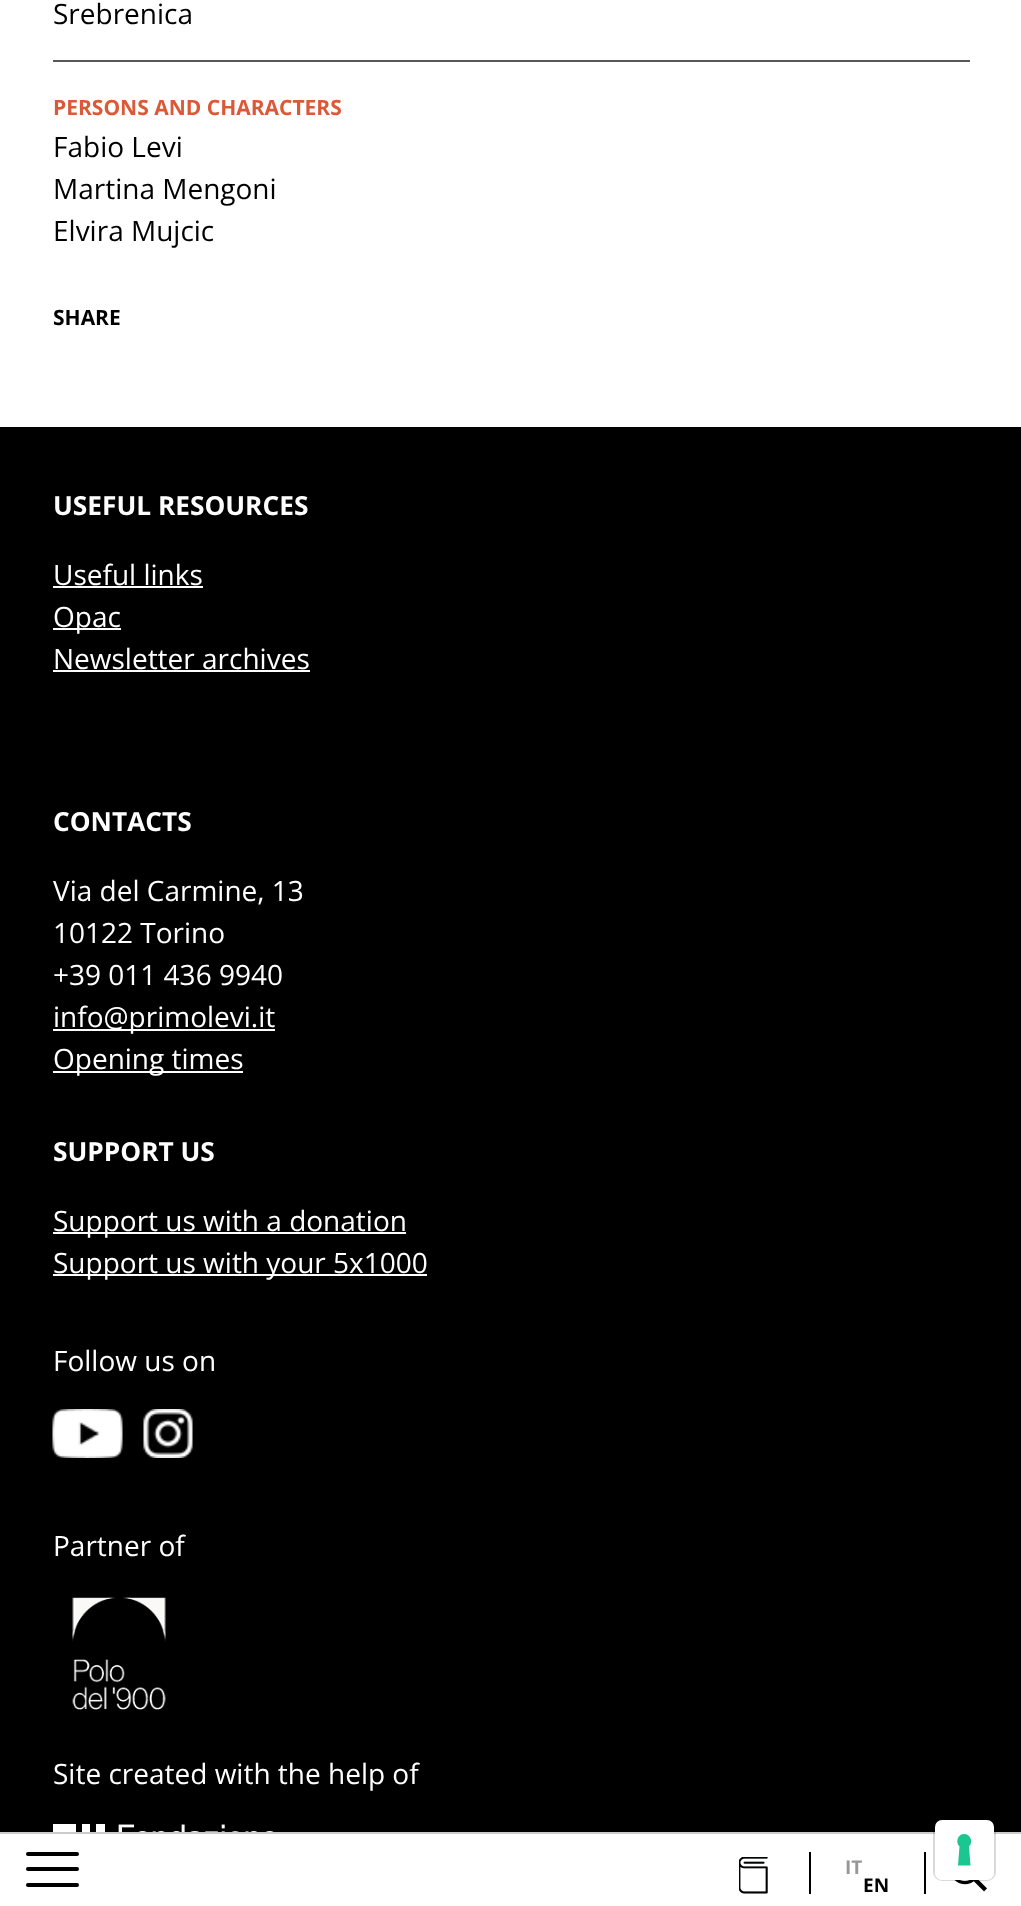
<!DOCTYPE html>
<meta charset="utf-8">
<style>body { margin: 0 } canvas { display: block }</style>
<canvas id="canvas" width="1021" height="1906"></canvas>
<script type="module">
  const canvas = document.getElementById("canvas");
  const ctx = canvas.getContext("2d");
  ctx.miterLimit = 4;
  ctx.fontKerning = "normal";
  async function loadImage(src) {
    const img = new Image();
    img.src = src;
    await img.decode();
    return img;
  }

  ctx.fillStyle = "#ffffff";
  ctx.fillRect(0, 0, 1021, 1906);
  ctx.font = "28px Open Sans";
  ctx.fillStyle = "#000000";
  ctx.fillText("Srebrenica", 53, 24);
  ctx.fillStyle = "#575756";
  ctx.fillRect(53, 60, 917, 2);
  ctx.font = "bold 21px Open Sans";
  ctx.fillStyle = "#db5936";
  ctx.fillText("PERSONS AND CHARACTERS", 53, 115);
  ctx.font = "28px Open Sans";
  ctx.fillStyle = "#000000";
  ctx.fillText("Fabio Levi", 53, 157);
  ctx.fillText("Martina Mengoni", 53, 199);
  ctx.fillText("Elvira Mujcic", 53, 241);
  ctx.font = "bold 21px Open Sans";
  ctx.fillText("SHARE", 53, 325);
  ctx.fillStyle = "#cccccc";
  ctx.fillRect(0, 1832, 1021, 2);
  ctx.fillStyle = "#000000";
  ctx.beginPath();
  ctx.roundRect(26, 1867, 53, 4, 2);
  ctx.fill();
  ctx.beginPath();
  ctx.roundRect(26, 1852, 53, 4, 2);
  ctx.fill();
  ctx.beginPath();
  ctx.roundRect(26, 1883, 53, 4, 2);
  ctx.fill();
  ctx.drawImage(await loadImage("img1.png"), 739, 1857, 29, 37);
  ctx.fillRect(924, 1852, 2, 42);
  ctx.fillRect(809, 1852, 2, 42);
  ctx.font = "bold 19px Open Sans";
  ctx.fillStyle = "#979797";
  ctx.fillText("IT", 845, 1874);
  ctx.fillStyle = "#000000";
  ctx.fillText("EN", 863, 1892);
  ctx.drawImage(await loadImage("img2.png"), 954, 1880, 33, 12);
  ctx.fillRect(0, 427, 1021, 1405);
  ctx.font = "bold 26.25px Open Sans";
  ctx.fillStyle = "#ffffff";
  ctx.fillText("USEFUL RESOURCES", 53, 515);
  ctx.font = "28px Open Sans";
  ctx.fillText("Useful links", 53, 585);
  ctx.fillRect(53, 586, 150, 2);
  ctx.fillRect(53, 628, 68, 2);
  ctx.fillText("Opac", 53, 627);
  ctx.fillText("Newsletter archives", 53, 669);
  ctx.fillRect(53, 670, 257, 2);
  ctx.font = "bold 26.25px Open Sans";
  ctx.fillText("CONTACTS", 53, 831);
  ctx.font = "28px Open Sans";
  ctx.fillText("Via del Carmine, 13", 53, 901);
  ctx.fillText("10122 Torino", 53, 943);
  ctx.fillText("+39 011 436 9940", 53, 985);
  ctx.fillRect(53, 1029, 222, 2);
  ctx.fillText("info@primolevi.it", 53, 1027);
  ctx.fillRect(53, 1071, 190, 2);
  ctx.fillText("Opening times", 53, 1069);
  ctx.font = "bold 26.25px Open Sans";
  ctx.fillText("SUPPORT US", 53, 1161);
  ctx.fillRect(53, 1232, 353, 2);
  ctx.font = "28px Open Sans";
  ctx.fillText("Support us with a donation", 53, 1231);
  ctx.fillRect(53, 1274, 374, 2);
  ctx.fillText("Support us with your 5x1000", 53, 1273);
  ctx.fillText("Follow us on", 53, 1371);
  ctx.drawImage(await loadImage("img3.png"), 52, 1409, 71, 49);
  ctx.drawImage(await loadImage("img4.png"), 143, 1409, 50, 49);
  ctx.fillText("Partner of", 53, 1556);
  ctx.drawImage(await loadImage("img5.png"), 72, 1597, 94, 113);
  ctx.fillText("Site created with the help of", 53, 1784);
  ctx.drawImage(await loadImage("img6.png"), 53, 1824, 221, 8);
  ctx.beginPath();
  ctx.roundRect(934, 1819, 61, 61, 8);
  ctx.strokeStyle = "rgba(0, 0, 0, 0.15)";
  ctx.lineWidth = 2;
  ctx.stroke();
  ctx.beginPath();
  ctx.roundRect(935, 1820, 59, 60, 7);
  ctx.fill();
  ctx.fillStyle = "#1cc691";
  ctx.beginPath();
  ctx.moveTo(964, 1834);
  ctx.bezierCurveTo(970.5, 1834, 973.5, 1842, 969, 1846.5);
  ctx.lineTo(970.5, 1865.5);
  ctx.lineTo(958, 1865.5);
  ctx.lineTo(959.5, 1846.5);
  ctx.bezierCurveTo(955, 1842, 958, 1834, 964, 1834);
  ctx.closePath();
  ctx.fill("evenodd");
</script>
